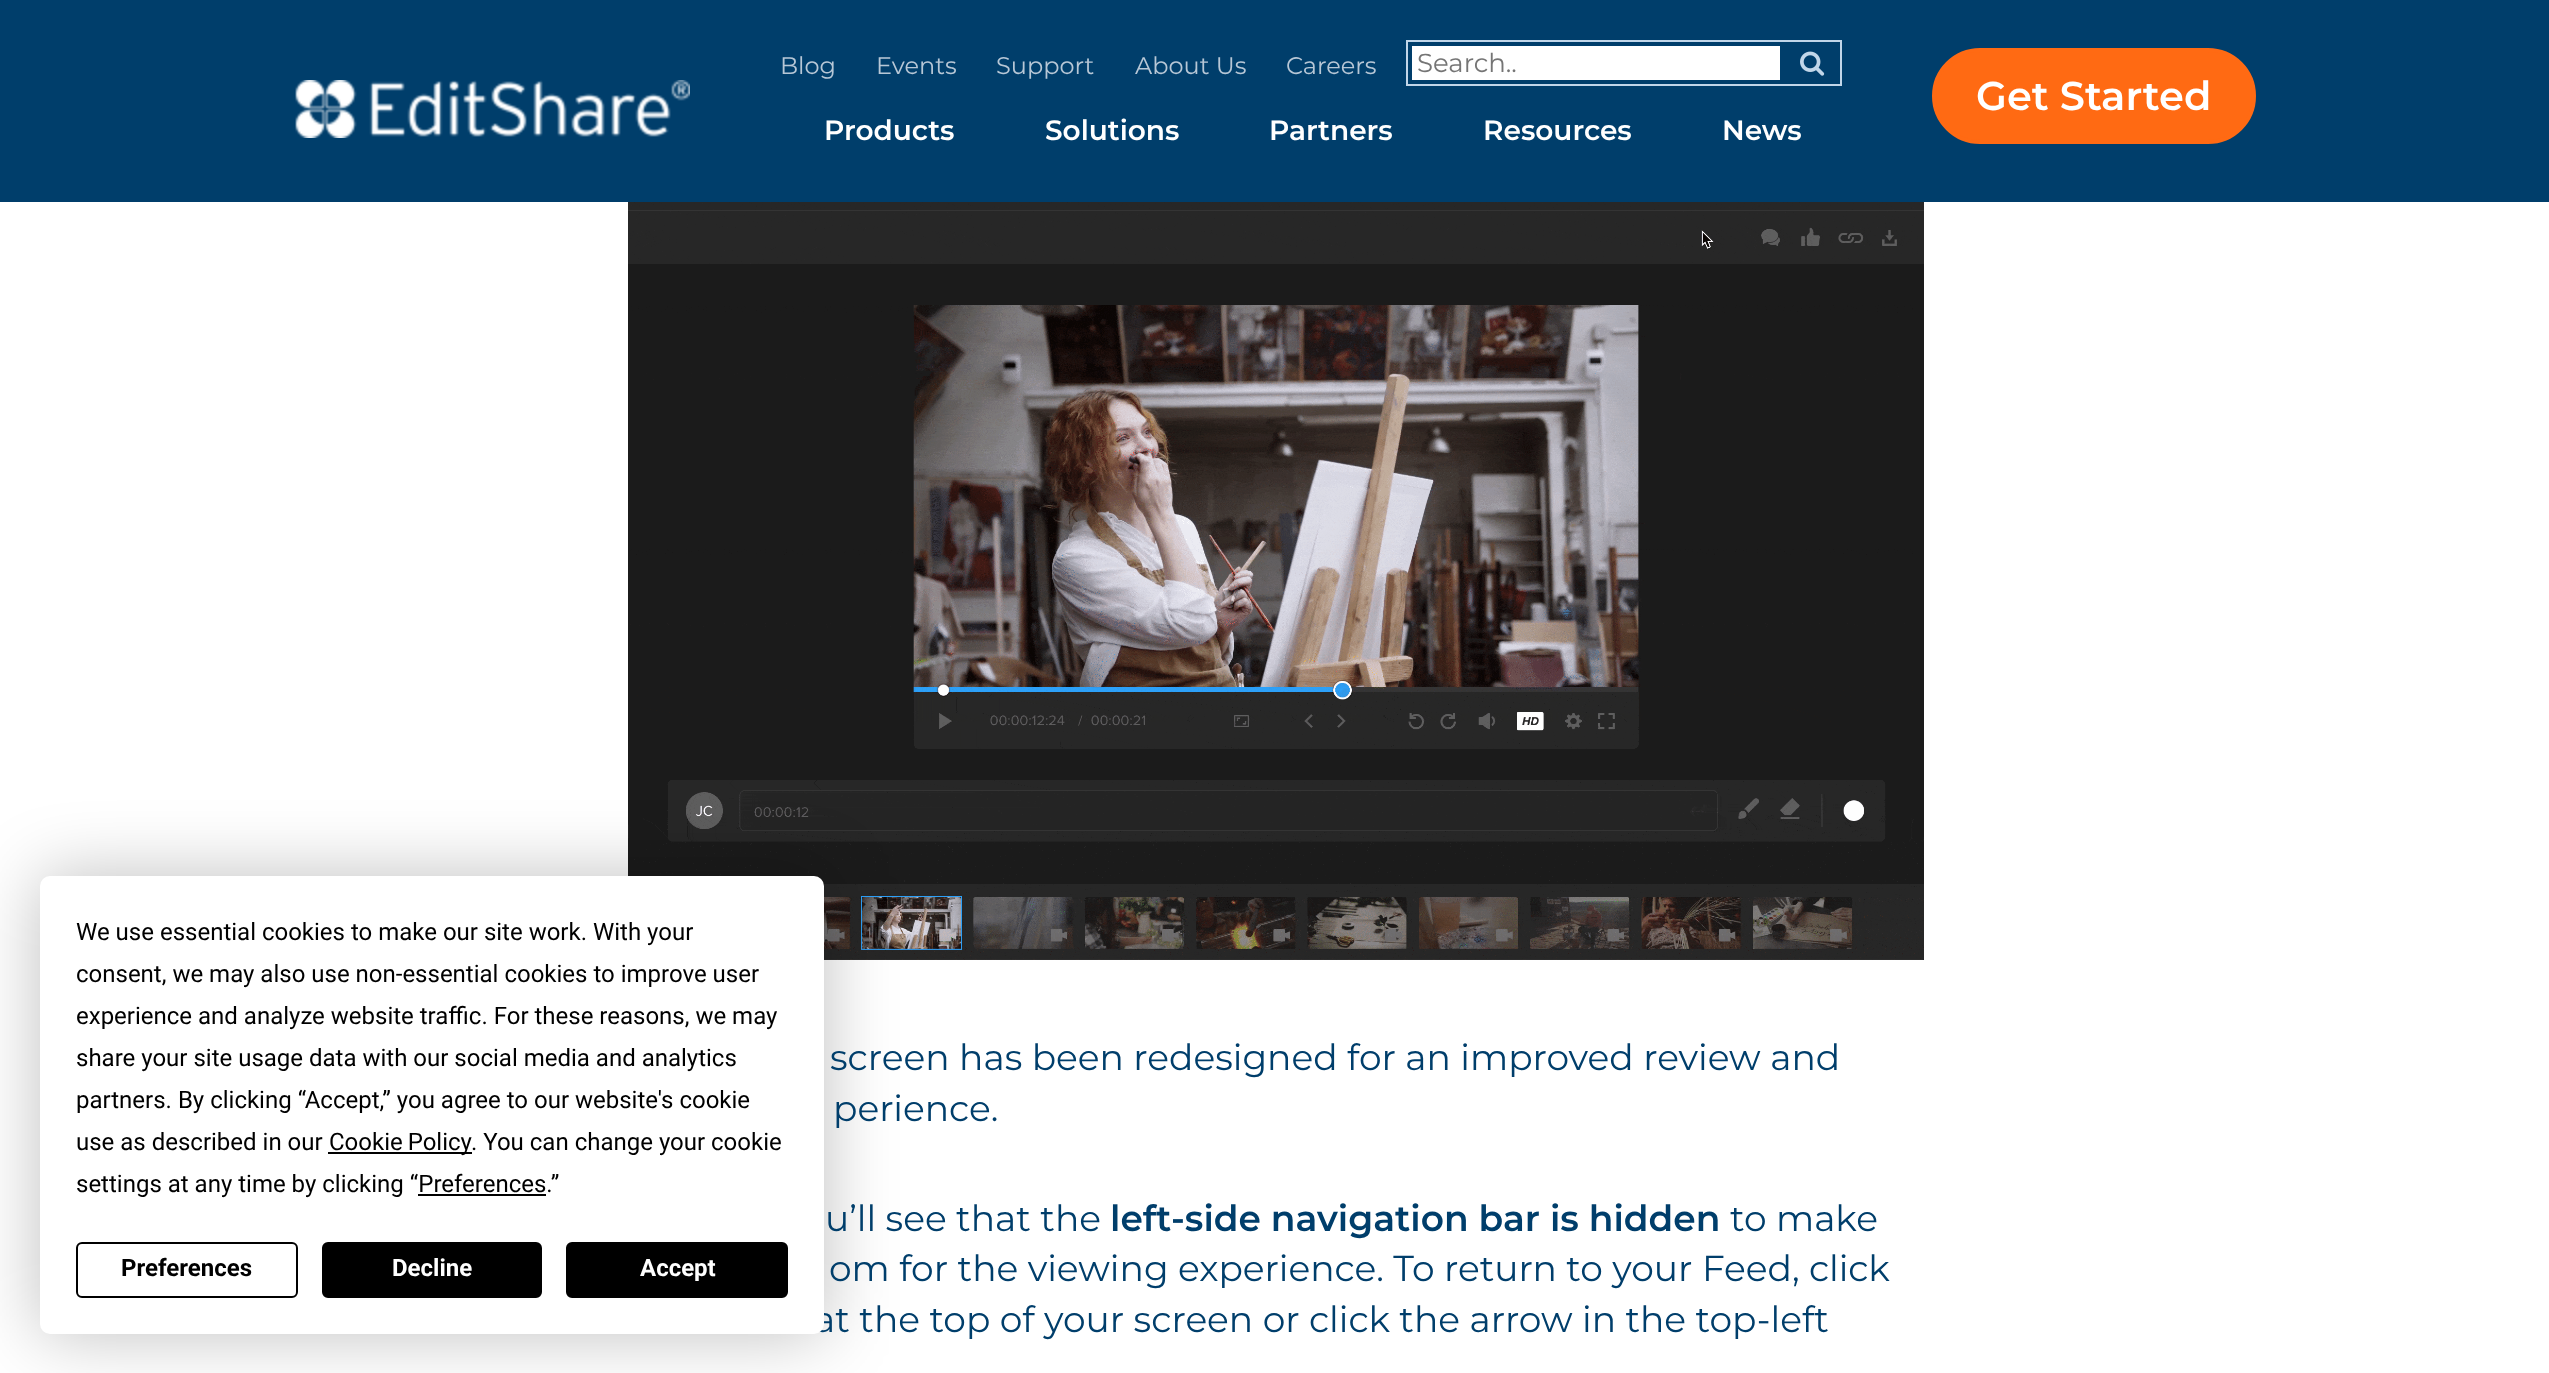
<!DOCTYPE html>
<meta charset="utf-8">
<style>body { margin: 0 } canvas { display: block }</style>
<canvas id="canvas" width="2549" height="1373"></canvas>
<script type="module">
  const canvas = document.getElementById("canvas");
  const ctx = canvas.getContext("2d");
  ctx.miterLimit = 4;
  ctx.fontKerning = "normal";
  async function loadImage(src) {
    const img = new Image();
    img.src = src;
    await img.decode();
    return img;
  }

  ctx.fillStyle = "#ffffff";
  ctx.fillRect(0, 0, 2549, 1373);
  ctx.fillStyle = "#003e6b";
  ctx.fillRect(0, 0, 2549, 202);
  ctx.drawImage(await loadImage("img1.png"), 295, 80, 395, 58);
  ctx.font = "24px Montserrat";
  ctx.fillStyle = "#b7c7d6";
  ctx.fillText("Blog", 780, 74);
  ctx.fillText("Events", 876, 74);
  ctx.fillText("Support", 996, 74);
  ctx.fillText("About Us", 1135, 74);
  ctx.fillText("Careers", 1286, 74);
  ctx.strokeStyle = "#c1d6e9";
  ctx.lineWidth = 2;
  ctx.strokeRect(1407, 41, 434, 44);
  ctx.fillStyle = "#ffffff";
  ctx.fillRect(1412, 46, 368, 34);
  ctx.font = "26px Montserrat";
  ctx.fillStyle = "#757575";
  ctx.fillText("Search..", 1417, 72);
  ctx.drawImage(await loadImage("img2.png"), 1800, 51, 25, 25);
  ctx.font = "600 28px Montserrat";
  ctx.fillStyle = "#ffffff";
  ctx.fillText("Products", 824, 140);
  ctx.fillText("Solutions", 1045, 140);
  ctx.fillText("Partners", 1269, 140);
  ctx.fillText("Resources", 1483, 140);
  ctx.fillText("News", 1722, 140);
  ctx.fillStyle = "#ff6a13";
  ctx.beginPath();
  ctx.roundRect(1934, 50, 320, 92, 46);
  ctx.fill();
  ctx.strokeStyle = "#ff6a13";
  ctx.lineWidth = 4;
  ctx.stroke();
  ctx.font = "600 40px Montserrat";
  ctx.fillStyle = "#ffffff";
  ctx.fillText("Get Started", 1976, 110);
  ctx.drawImage(await loadImage("img3.png"), 628, 202, 1296, 758);
  ctx.fillStyle = "rgba(0, 0, 0, 0.25)";
  ctx.filter = "blur(35px)";
  ctx.beginPath();
  ctx.roundRect(40, 876, 784, 458, 10);
  ctx.fill();
  ctx.filter = "none";
  ctx.font = "36px Montserrat";
  ctx.fillStyle = "#003e6b";
  ctx.fillText("at the top of your screen or click the arrow in the top-left", 814, 1332);
  ctx.fillStyle = "#ffffff";
  ctx.beginPath();
  ctx.roundRect(40, 876, 784, 458, 10);
  ctx.fill();
  ctx.font = "24px Roboto";
  ctx.fillStyle = "#000000";
  ctx.fillText("We use essential cookies to make our site work. With your", 76, 940);
  ctx.fillText("consent, we may also use non-essential cookies to improve user", 76, 982);
  ctx.fillText("experience and analyze website traffic. For these reasons, we may", 76, 1024);
  ctx.fillText("share your site usage data with our social media and analytics", 76, 1066);
  ctx.fillText("partners. By clicking “Accept,” you agree to our website's cookie", 76, 1108);
  ctx.fillText("use as described in our", 76, 1150);
  ctx.fillRect(328, 1152, 144, 2);
  ctx.wordSpacing = "-1px";
  ctx.fillText("Cookie Policy", 329, 1150);
  ctx.wordSpacing = "0px";
  ctx.fillText(". You can change your cookie", 471, 1150);
  ctx.fillText("settings at any time by clicking “Preferences.”", 76, 1192);
  ctx.fillRect(418, 1194, 128, 2);
  ctx.beginPath();
  ctx.roundRect(77, 1243, 220, 54, 5);
  ctx.strokeStyle = "#000000";
  ctx.lineWidth = 2;
  ctx.stroke();
  ctx.font = "bold 24px Roboto";
  ctx.fillText("Preferences", 121, 1276);
  ctx.beginPath();
  ctx.roundRect(323, 1243, 218, 54, 5);
  ctx.fill();
  ctx.stroke();
  ctx.fillStyle = "#ffffff";
  ctx.fillText("Decline", 392, 1276);
  ctx.fillStyle = "#000000";
  ctx.beginPath();
  ctx.roundRect(567, 1243, 220, 54, 5);
  ctx.fill();
  ctx.stroke();
  ctx.fillStyle = "#ffffff";
  ctx.fillText("Accept", 640, 1276);
  ctx.font = "36px Montserrat";
  ctx.fillStyle = "#003e6b";
  ctx.fillText("screen has been redesigned for an improved review and", 830, 1070);
  ctx.fillText("perience.", 833, 1121);
  ctx.fillText("u’ll see that the", 825, 1231);
  ctx.font = "600 36px Montserrat";
  ctx.fillText("left-side navigation bar is hidden", 1110, 1231);
  ctx.font = "36px Montserrat";
  ctx.fillText("to make", 1730, 1231);
  ctx.fillText("om for the viewing experience. To return to your Feed, click", 829, 1281);
</script>
